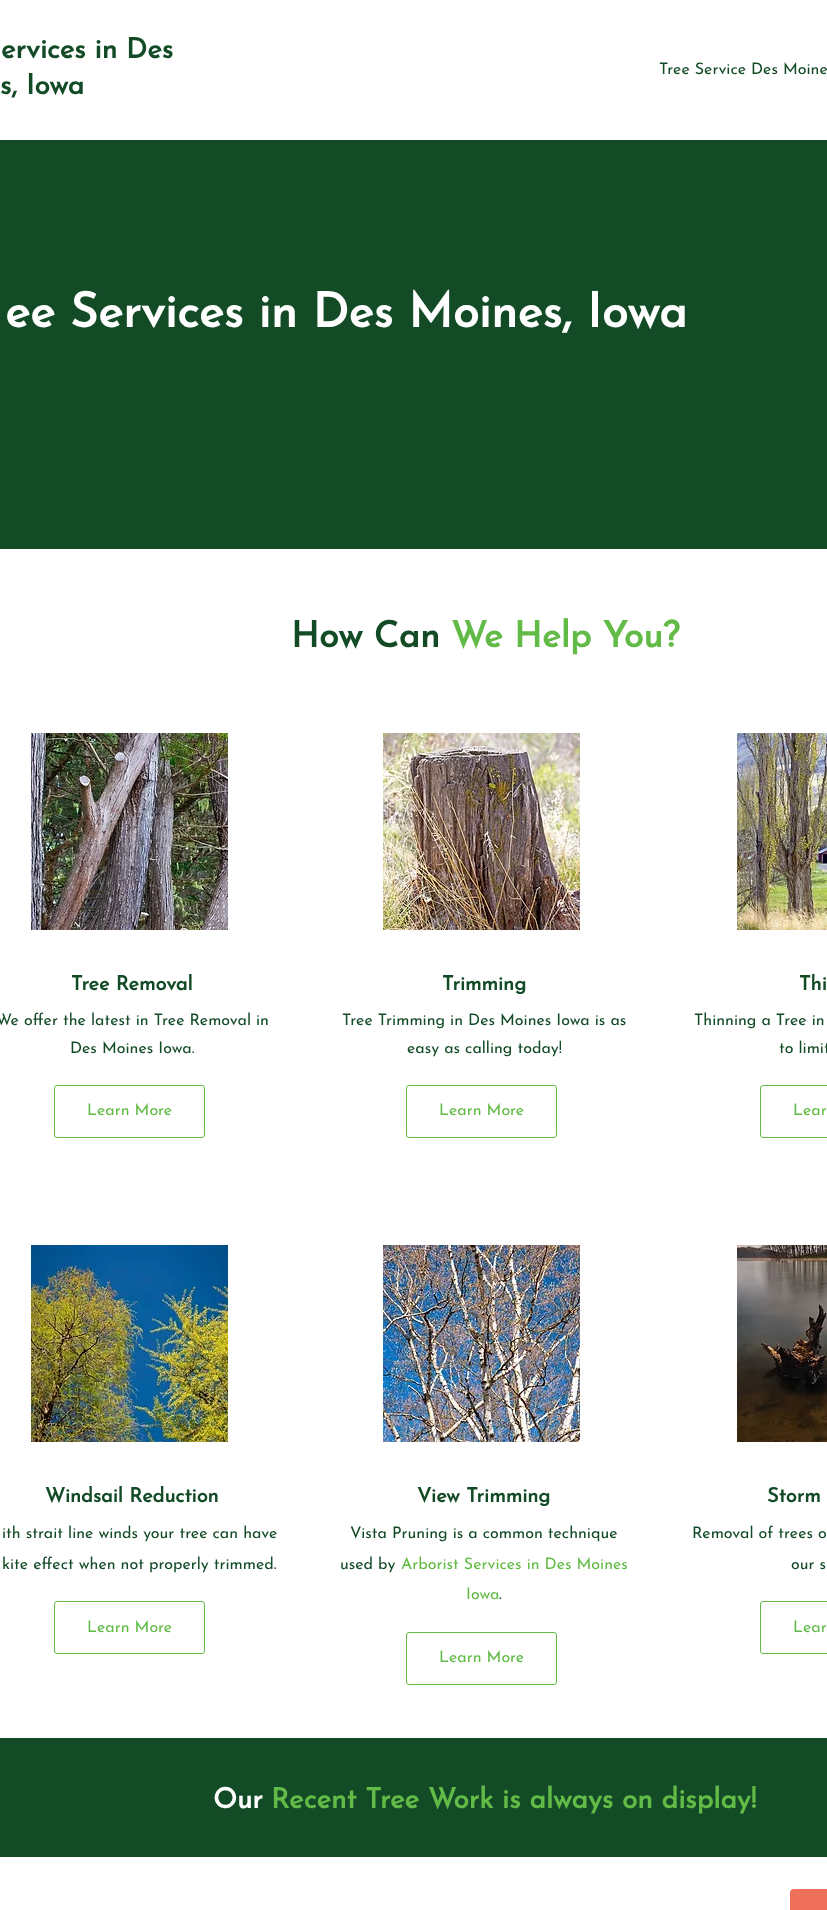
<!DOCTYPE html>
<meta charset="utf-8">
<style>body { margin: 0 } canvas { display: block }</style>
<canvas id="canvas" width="827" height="1910"></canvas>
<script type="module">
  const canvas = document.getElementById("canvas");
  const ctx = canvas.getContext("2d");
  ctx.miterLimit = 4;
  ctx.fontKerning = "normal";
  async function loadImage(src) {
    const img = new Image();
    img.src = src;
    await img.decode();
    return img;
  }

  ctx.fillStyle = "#134b26";
  ctx.fillRect(0, 0, 827, 1910);
  ctx.fillStyle = "#ffffff";
  ctx.fillRect(0, 0, 827, 140);
  ctx.font = "bold 28px Josefin Sans";
  ctx.fillStyle = "#134b26";
  ctx.fillText("ervices in Des", 1, 58);
  ctx.fillText("s, Iowa", 0, 94);
  ctx.font = "16px Josefin Sans";
  ctx.fillText("Tree Service Des Moine", 659, 74);
  ctx.font = "bold 48px Josefin Sans";
  ctx.fillStyle = "#ffffff";
  ctx.fillText("ee Services in Des Moines, Iowa", 5, 327);
  ctx.fillRect(0, 549, 827, 1189);
  ctx.font = "bold 36px Josefin Sans";
  ctx.fillStyle = "#134b26";
  ctx.fillText("How Can", 291, 647);
  ctx.fillStyle = "#62bb46";
  ctx.fillText("We Help You?", 451, 647);
  ctx.drawImage(await loadImage("img1.png"), 31, 733, 197, 197);
  ctx.font = "bold 20px Josefin Sans";
  ctx.fillStyle = "#134b26";
  ctx.fillText("Tree Removal", 71, 990);
  ctx.font = "16px Josefin Sans";
  ctx.fillText("We offer the latest in Tree Removal in", -4, 1025);
  ctx.fillText("Des Moines Iowa.", 70, 1053);
  ctx.beginPath();
  ctx.roundRect(54.5, 1085.5, 150, 52, 2.5);
  ctx.strokeStyle = "#62bb46";
  ctx.stroke();
  ctx.fillStyle = "#62bb46";
  ctx.fillText("Learn More", 87, 1115);
  ctx.drawImage(await loadImage("img2.png"), 383, 733, 197, 197);
  ctx.font = "bold 20px Josefin Sans";
  ctx.fillStyle = "#134b26";
  ctx.fillText("Trimming", 442, 990);
  ctx.font = "16px Josefin Sans";
  ctx.fillText("Tree Trimming in Des Moines Iowa is as", 342, 1025);
  ctx.fillText("easy as calling today!", 407, 1053);
  ctx.beginPath();
  ctx.roundRect(406.5, 1085.5, 150, 52, 2.5);
  ctx.stroke();
  ctx.fillStyle = "#62bb46";
  ctx.fillText("Learn More", 439, 1115);
  ctx.drawImage(await loadImage("img3.png"), 737, 733, 90, 197);
  ctx.font = "bold 20px Josefin Sans";
  ctx.fillStyle = "#134b26";
  ctx.fillText("Thi", 799, 990);
  ctx.font = "16px Josefin Sans";
  ctx.fillText("Thinning a Tree in", 694, 1025);
  ctx.fillText("to limit", 779, 1053);
  ctx.beginPath();
  ctx.roundRect(760.5, 1085.5, 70, 52, 2.5);
  ctx.stroke();
  ctx.fillStyle = "#62bb46";
  ctx.fillText("Lear", 793, 1115);
  ctx.drawImage(await loadImage("img4.png"), 31, 1245, 197, 197);
  ctx.font = "bold 20px Josefin Sans";
  ctx.fillStyle = "#134b26";
  ctx.fillText("Windsail Reduction", 45, 1502);
  ctx.font = "16px Josefin Sans";
  ctx.fillText("ith strait line winds your tree can have", 2, 1538);
  ctx.fillText("kite effect when not properly trimmed.", 2, 1569);
  ctx.beginPath();
  ctx.roundRect(54.5, 1601.5, 150, 52, 2.5);
  ctx.stroke();
  ctx.fillStyle = "#62bb46";
  ctx.fillText("Learn More", 87, 1632);
  ctx.drawImage(await loadImage("img5.png"), 383, 1245, 197, 197);
  ctx.font = "bold 20px Josefin Sans";
  ctx.fillStyle = "#134b26";
  ctx.fillText("View Trimming", 417, 1502);
  ctx.font = "16px Josefin Sans";
  ctx.fillText("Vista Pruning is a common technique", 350, 1538);
  ctx.fillText("used by", 340, 1569);
  ctx.fillStyle = "#62bb46";
  ctx.fillText("Arborist Services in Des Moines", 401, 1569);
  ctx.fillText("Iowa", 466, 1599);
  ctx.fillStyle = "#134b26";
  ctx.fillText(".", 499, 1599);
  ctx.beginPath();
  ctx.roundRect(406.5, 1632.5, 150, 52, 2.5);
  ctx.stroke();
  ctx.fillStyle = "#62bb46";
  ctx.fillText("Learn More", 439, 1662);
  ctx.drawImage(await loadImage("img6.png"), 737, 1245, 90, 197);
  ctx.font = "bold 20px Josefin Sans";
  ctx.fillStyle = "#134b26";
  ctx.fillText("Storm", 767, 1502);
  ctx.font = "16px Josefin Sans";
  ctx.fillText("Removal of trees o", 692, 1538);
  ctx.fillText("our s", 791, 1569);
  ctx.beginPath();
  ctx.roundRect(760.5, 1601.5, 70, 52, 2.5);
  ctx.stroke();
  ctx.fillStyle = "#62bb46";
  ctx.fillText("Lear", 793, 1632);
  ctx.font = "bold 28px Josefin Sans";
  ctx.fillStyle = "#ffffff";
  ctx.fillText("Our", 213, 1808);
  ctx.fillStyle = "#62bb46";
  ctx.fillText("Recent Tree Work is always on display!", 271, 1808);
  ctx.fillStyle = "#ffffff";
  ctx.fillRect(0, 1857, 827, 53);
  ctx.fillStyle = "#ee705b";
  ctx.beginPath();
  ctx.roundRect(790, 1889, 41, 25, 4);
  ctx.fill();
</script>
